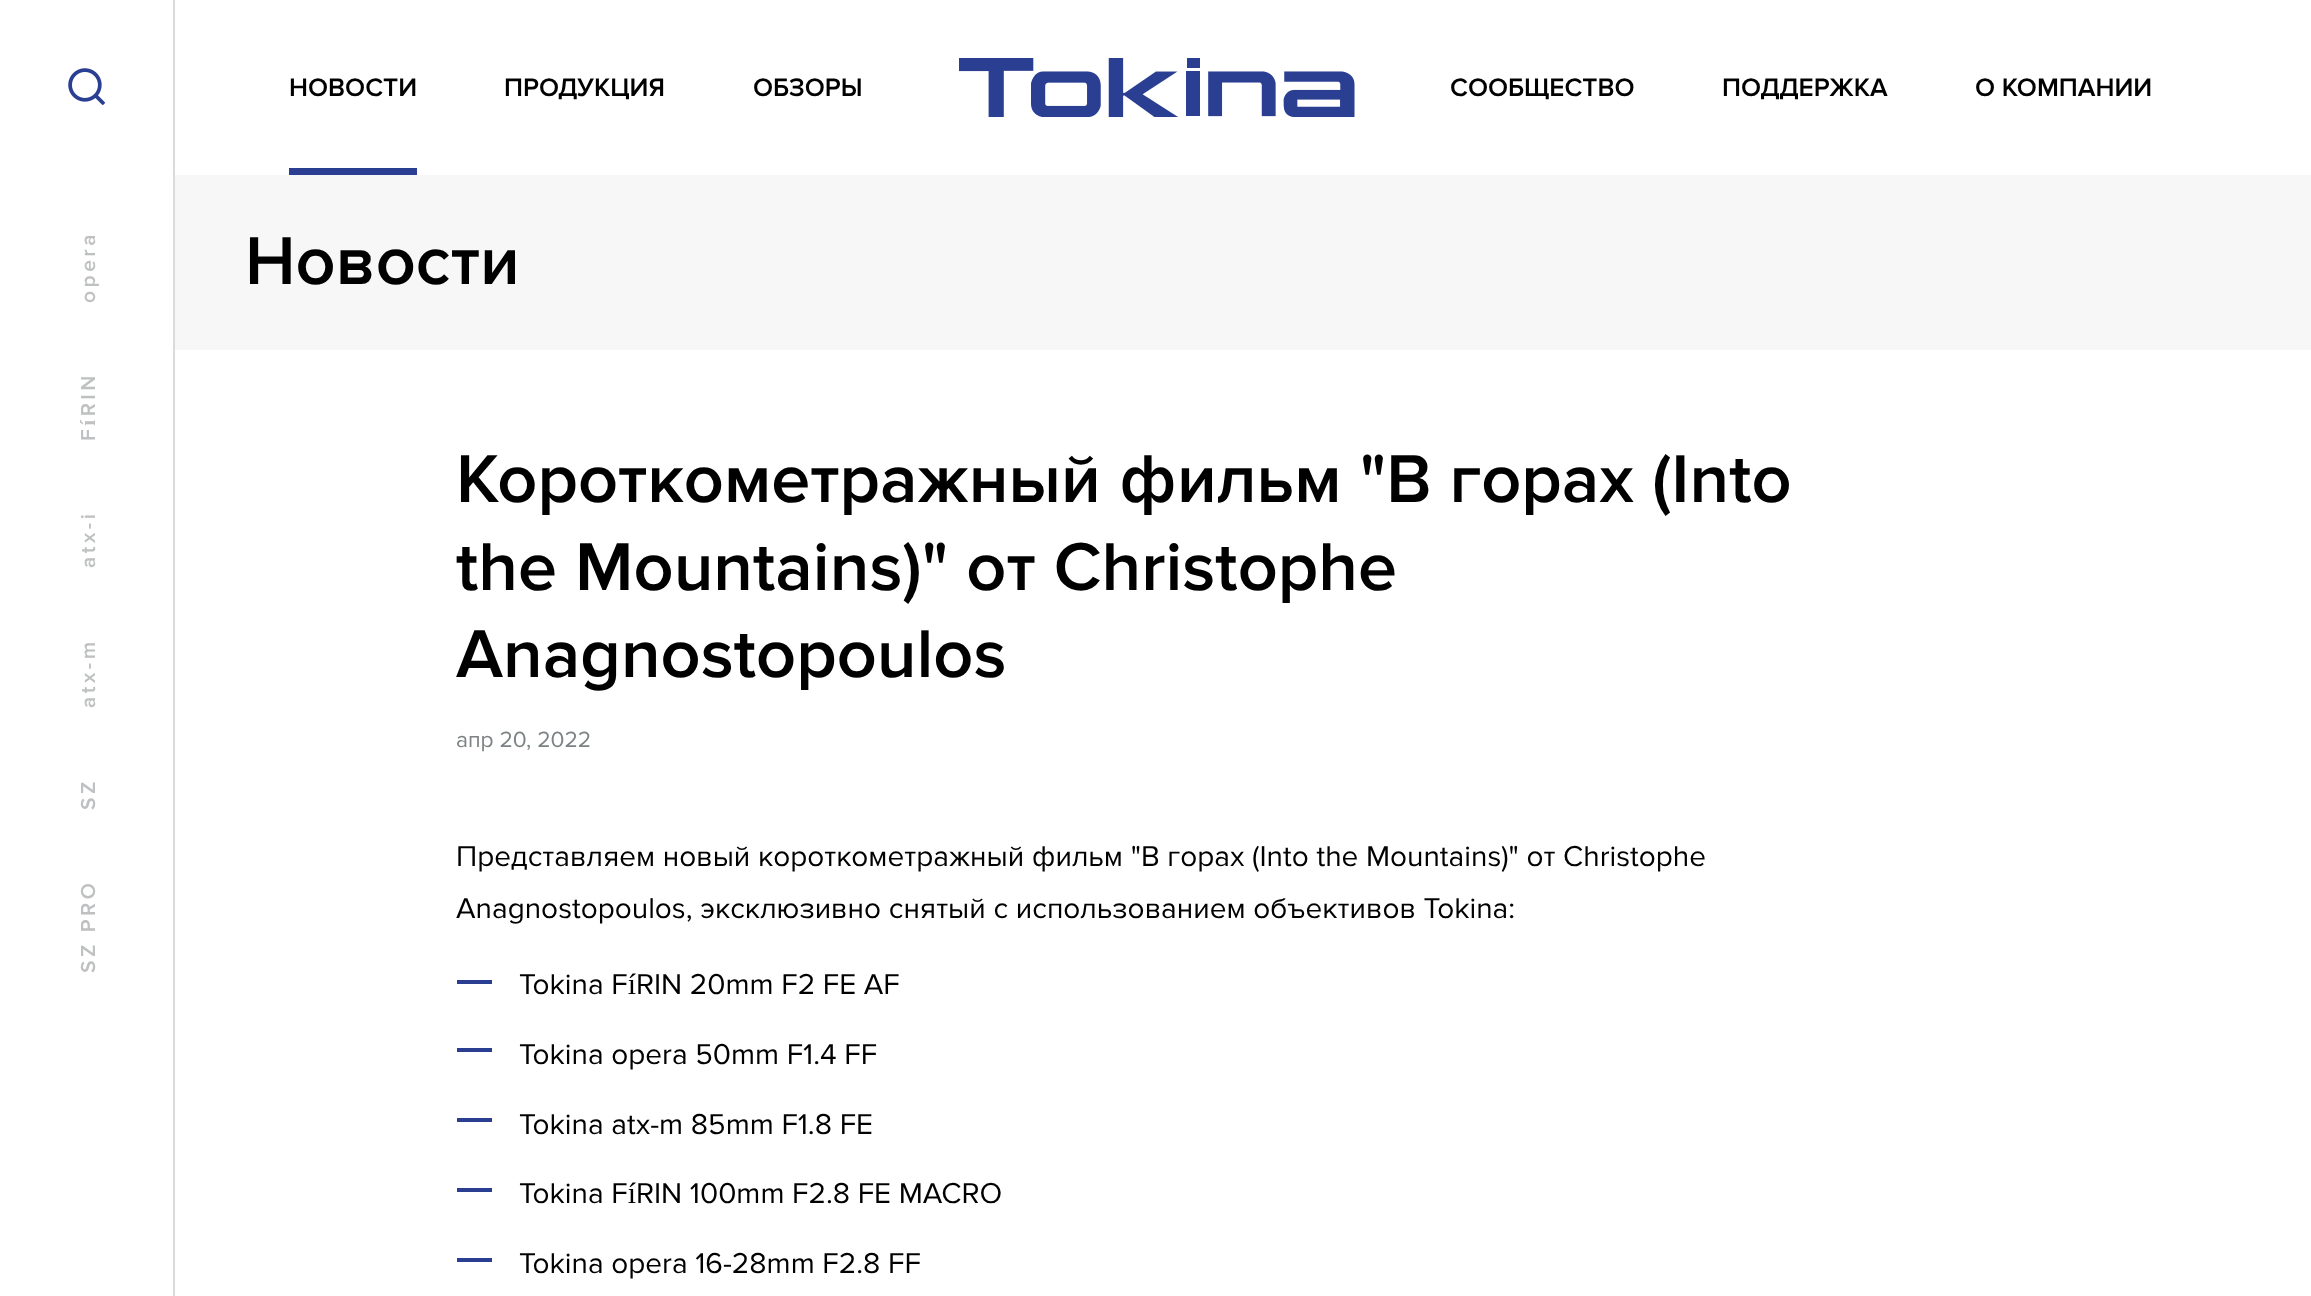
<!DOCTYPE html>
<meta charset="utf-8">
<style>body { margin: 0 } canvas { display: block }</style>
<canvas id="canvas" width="2311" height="1296"></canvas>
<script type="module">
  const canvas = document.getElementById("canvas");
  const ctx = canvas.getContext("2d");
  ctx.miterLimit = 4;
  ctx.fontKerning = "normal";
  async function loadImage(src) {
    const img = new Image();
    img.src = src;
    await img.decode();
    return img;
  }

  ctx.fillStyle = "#ffffff";
  ctx.fillRect(0, 0, 2311, 1296);
  ctx.font = "600 26.25px Proxima Nova";
  ctx.fillStyle = "#000000";
  ctx.fillText("НОВОСТИ", 289, 96);
  ctx.fillStyle = "#2a3e92";
  ctx.fillRect(289, 168, 128, 7);
  ctx.fillStyle = "#000000";
  ctx.fillText("ПРОДУКЦИЯ", 504, 96);
  ctx.fillText("ОБЗОРЫ", 753, 96);
  ctx.drawImage(await loadImage("img1.png"), 959, 58, 396, 59);
  ctx.fillText("СООБЩЕСТВО", 1450, 96);
  ctx.fillText("ПОДДЕРЖКА", 1722, 96);
  ctx.fillText("О КОМПАНИИ", 1975, 96);
  ctx.fillStyle = "#dbdbdb";
  ctx.fillRect(173, 0, 2, 1296);
  ctx.drawImage(await loadImage("img2.png"), 68, 68, 37, 37);
  ctx.letterSpacing = "3.5px";
  ctx.font = "600 21px Proxima Nova";
  ctx.fillStyle = "#bec0c1";
  ctx.save();
  ctx.translate(95, 303);
  ctx.rotate(-90 * Math.PI / 180);
  ctx.fillText("opera", 0, 0);
  ctx.restore();
  ctx.save();
  ctx.translate(95, 441);
  ctx.rotate(-90 * Math.PI / 180);
  ctx.fillText("FíRIN", 0, 0);
  ctx.restore();
  ctx.save();
  ctx.translate(95, 568);
  ctx.rotate(-90 * Math.PI / 180);
  ctx.fillText("atx-i", 0, 0);
  ctx.restore();
  ctx.save();
  ctx.translate(95, 708);
  ctx.rotate(-90 * Math.PI / 180);
  ctx.fillText("atx-m", 0, 0);
  ctx.restore();
  ctx.save();
  ctx.translate(95, 810);
  ctx.rotate(-90 * Math.PI / 180);
  ctx.fillText("SZ", 0, 0);
  ctx.restore();
  ctx.save();
  ctx.translate(95, 973);
  ctx.rotate(-90 * Math.PI / 180);
  ctx.fillText("SZ PRO", 0, 0);
  ctx.restore();
  ctx.fillStyle = "#f7f7f7";
  ctx.fillRect(175, 175, 2136, 175);
  ctx.letterSpacing = "0px";
  ctx.font = "600 70px Proxima Nova";
  ctx.fillStyle = "#000000";
  ctx.fillText("Новости", 245, 284);
  ctx.fillText("Короткометражный фильм \"В горах (Into", 456, 502);
  ctx.fillText("the Mountains)\" от Christophe", 456, 590);
  ctx.fillText("Anagnostopoulos", 456, 677);
  ctx.font = "22.75px Proxima Nova";
  ctx.fillStyle = "#7d8284";
  ctx.fillText("апр 20, 2022", 456, 747);
  ctx.font = "29.75px Proxima Nova";
  ctx.fillStyle = "#000000";
  ctx.fillText("Представляем новый короткометражный фильм \"В горах (Into the Mountains)\" от Christophe", 456, 866);
  ctx.fillText("Anagnostopoulos, эксклюзивно снятый с использованием объективов Tokina:", 456, 918);
  ctx.fillStyle = "#2a3e92";
  ctx.fillRect(457, 980, 35, 4);
  ctx.fillStyle = "#000000";
  ctx.fillText("Tokina FíRIN 20mm F2 FE AF", 519, 994);
  ctx.fillStyle = "#2a3e92";
  ctx.fillRect(457, 1048, 35, 4);
  ctx.fillStyle = "#000000";
  ctx.fillText("Tokina opera 50mm F1.4 FF", 519, 1064);
  ctx.fillStyle = "#2a3e92";
  ctx.fillRect(457, 1118, 35, 4);
  ctx.fillStyle = "#000000";
  ctx.fillText("Tokina atx-m 85mm F1.8 FE", 519, 1134);
  ctx.fillStyle = "#2a3e92";
  ctx.fillRect(457, 1188, 35, 4);
  ctx.fillStyle = "#000000";
  ctx.fillText("Tokina FíRIN 100mm F2.8 FE MACRO", 519, 1203);
  ctx.fillStyle = "#2a3e92";
  ctx.fillRect(457, 1258, 35, 4);
  ctx.fillStyle = "#000000";
  ctx.fillText("Tokina opera 16-28mm F2.8 FF", 519, 1273);
</script>
